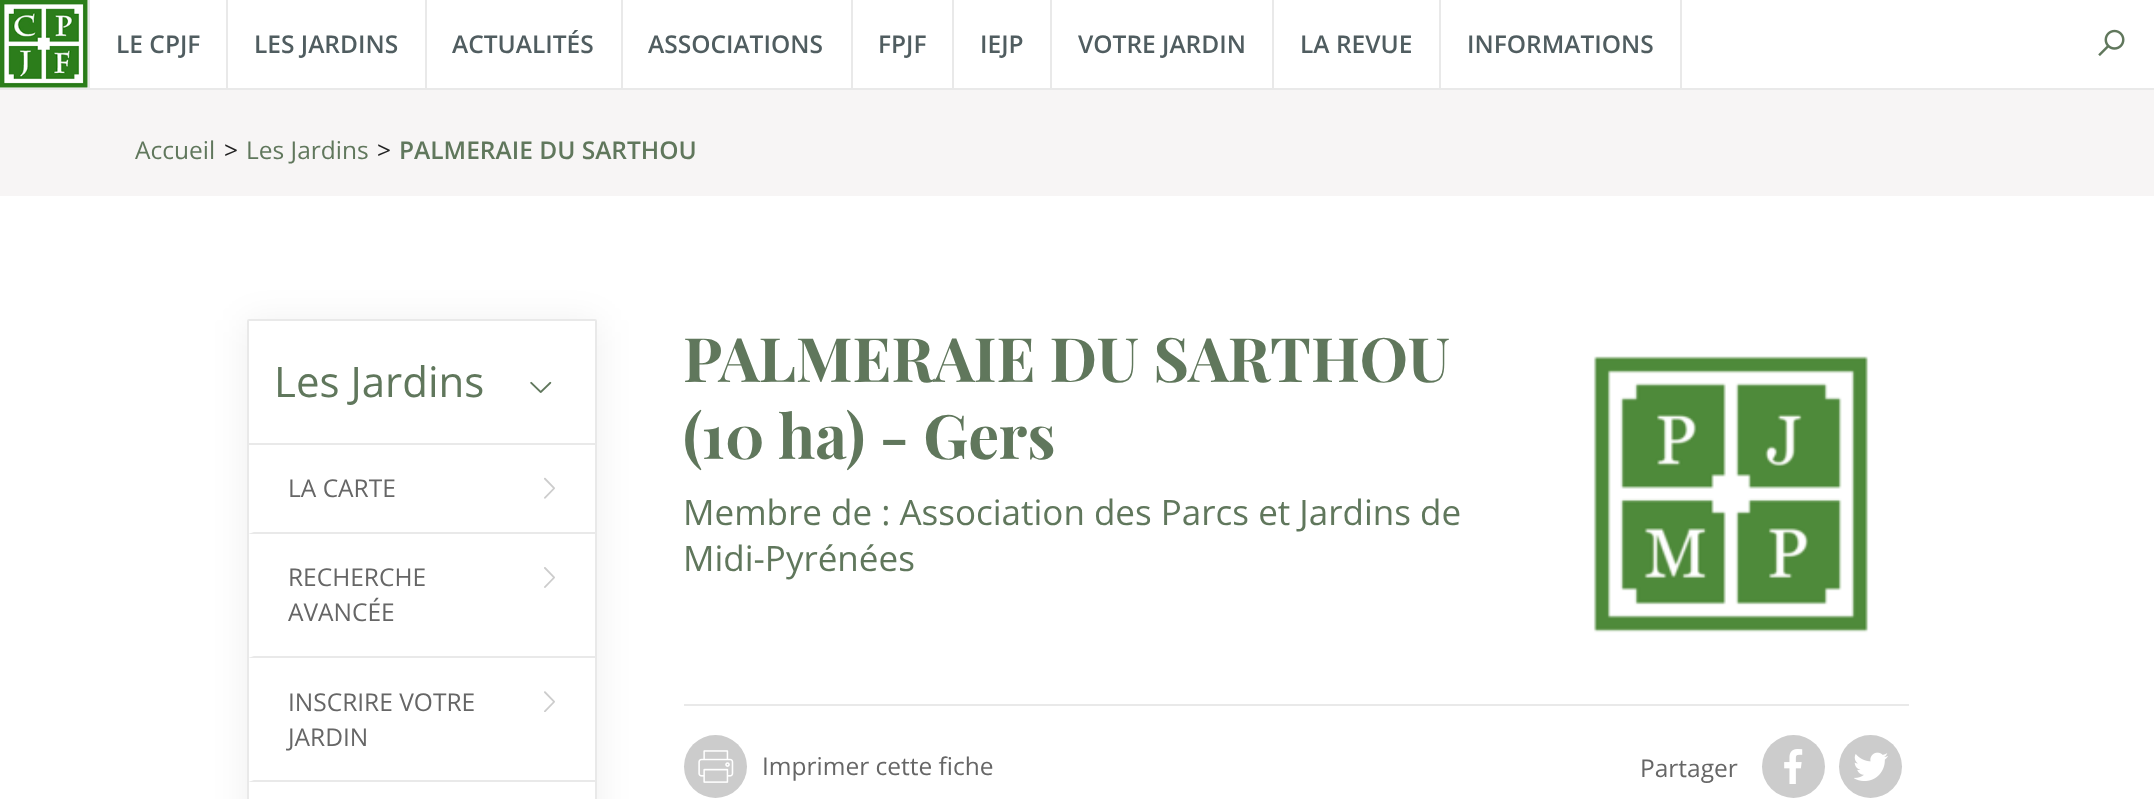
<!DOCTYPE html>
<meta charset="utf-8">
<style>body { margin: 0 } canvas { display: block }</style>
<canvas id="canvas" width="2154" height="799"></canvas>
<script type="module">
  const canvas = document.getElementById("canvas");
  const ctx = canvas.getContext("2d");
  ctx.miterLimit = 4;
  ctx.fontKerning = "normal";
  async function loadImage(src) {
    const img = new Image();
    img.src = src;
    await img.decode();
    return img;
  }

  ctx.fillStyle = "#ffffff";
  ctx.fillRect(0, 0, 2154, 799);
  ctx.fillStyle = "#e9e9e9";
  ctx.fillRect(0, 88, 2154, 2);
  ctx.fillRect(88, 0, 2, 88);
  ctx.drawImage(await loadImage("img1.png"), 0, 0, 88, 88);
  ctx.fillRect(226, 0, 2, 88);
  ctx.font = "600 24.5px Open Sans";
  ctx.fillStyle = "#505d60";
  ctx.fillText("LE CPJF", 116, 53);
  ctx.fillStyle = "#e9e9e9";
  ctx.fillRect(425, 0, 2, 88);
  ctx.fillStyle = "#505d60";
  ctx.fillText("LES JARDINS", 254, 53);
  ctx.fillStyle = "#e9e9e9";
  ctx.fillRect(621, 0, 2, 88);
  ctx.fillStyle = "#505d60";
  ctx.fillText("ACTUALITÉS", 452, 53);
  ctx.fillStyle = "#e9e9e9";
  ctx.fillRect(851, 0, 2, 88);
  ctx.fillStyle = "#505d60";
  ctx.fillText("ASSOCIATIONS", 648, 53);
  ctx.fillStyle = "#e9e9e9";
  ctx.fillRect(952, 0, 2, 88);
  ctx.fillStyle = "#505d60";
  ctx.fillText("FPJF", 878, 53);
  ctx.fillStyle = "#e9e9e9";
  ctx.fillRect(1050, 0, 2, 88);
  ctx.fillStyle = "#505d60";
  ctx.fillText("IEJP", 980, 53);
  ctx.fillStyle = "#e9e9e9";
  ctx.fillRect(1272, 0, 2, 88);
  ctx.fillStyle = "#505d60";
  ctx.fillText("VOTRE JARDIN", 1078, 53);
  ctx.fillStyle = "#e9e9e9";
  ctx.fillRect(1439, 0, 2, 88);
  ctx.fillStyle = "#505d60";
  ctx.fillText("LA REVUE", 1300, 53);
  ctx.fillStyle = "#e9e9e9";
  ctx.fillRect(1680, 0, 2, 88);
  ctx.fillStyle = "#505d60";
  ctx.fillText("INFORMATIONS", 1467, 53);
  ctx.drawImage(await loadImage("img2.png"), 2098, 29, 27, 27);
  ctx.fillStyle = "#f7f5f5";
  ctx.fillRect(0, 90, 2154, 106);
  ctx.font = "24.5px Open Sans";
  ctx.fillStyle = "#60775c";
  ctx.fillText("Accueil", 135, 159);
  ctx.fillStyle = "#222222";
  ctx.fillText(">", 224, 159);
  ctx.fillStyle = "#60775c";
  ctx.fillText("Les Jardins", 246, 159);
  ctx.fillStyle = "#222222";
  ctx.fillText(">", 377, 159);
  ctx.font = "600 24.5px Open Sans";
  ctx.fillStyle = "#60775c";
  ctx.fillText("PALMERAIE DU SARTHOU", 399, 159);
  ctx.fillStyle = "rgba(0, 0, 0, 0.06)";
  ctx.filter = "blur(17.5px)";
  ctx.beginPath();
  ctx.roundRect(245, 320, 354, 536, 4);
  ctx.fill();
  ctx.filter = "none";
  ctx.fillStyle = "#ffffff";
  ctx.beginPath();
  ctx.roundRect(248, 320, 348, 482, 1);
  ctx.fill();
  ctx.strokeStyle = "#e9e9e9";
  ctx.lineWidth = 2;
  ctx.stroke();
  ctx.fillStyle = "#e9e9e9";
  ctx.fillRect(249, 443, 346, 2);
  ctx.font = "42px Open Sans";
  ctx.fillStyle = "#60775c";
  ctx.fillText("Les Jardins", 274, 397);
  ctx.drawImage(await loadImage("img3.png"), 530, 381, 22, 12);
  ctx.fillStyle = "#e9e9e9";
  ctx.beginPath();
  ctx.moveTo(595, 534);
  ctx.lineTo(248, 534);
  ctx.lineTo(254, 532);
  ctx.lineTo(595, 532);
  ctx.closePath();
  ctx.fill();
  ctx.font = "24.5px Open Sans";
  ctx.fillStyle = "#666666";
  ctx.fillText("LA CARTE", 288, 497);
  ctx.drawImage(await loadImage("img4.png"), 544, 477, 11, 22);
  ctx.fillStyle = "#e9e9e9";
  ctx.beginPath();
  ctx.moveTo(595, 658);
  ctx.lineTo(248, 658);
  ctx.lineTo(254, 656);
  ctx.lineTo(595, 656);
  ctx.closePath();
  ctx.fill();
  ctx.fillStyle = "#666666";
  ctx.fillText("RECHERCHE", 288, 586);
  ctx.drawImage(await loadImage("img5.png"), 544, 567, 11, 21);
  ctx.fillText("AVANCÉE", 288, 621);
  ctx.fillStyle = "#e9e9e9";
  ctx.beginPath();
  ctx.moveTo(595, 782);
  ctx.lineTo(248, 782);
  ctx.lineTo(254, 780);
  ctx.lineTo(595, 780);
  ctx.closePath();
  ctx.fill();
  ctx.fillStyle = "#666666";
  ctx.fillText("INSCRIRE VOTRE", 288, 711);
  ctx.drawImage(await loadImage("img6.png"), 544, 691, 11, 21);
  ctx.fillText("JARDIN", 288, 746);
  ctx.font = "bold 61.25px Playfair Display";
  ctx.fillStyle = "#60775c";
  ctx.fillText("PALMERAIE DU SARTHOU", 683, 382);
  ctx.fillText("(10 ha) - Gers", 683, 459);
  ctx.drawImage(await loadImage("img7.png"), 1593, 356, 276, 277);
  ctx.font = "35px Open Sans";
  ctx.fillText("Membre de : Association des Parcs et Jardins de", 683, 525);
  ctx.fillText("Midi-Pyrénées", 683, 571);
  ctx.fillStyle = "#e9e9e9";
  ctx.fillRect(684, 704, 1225, 2);
  ctx.fillStyle = "#cccccc";
  ctx.beginPath();
  ctx.arc(715.5, 766.5, 31.5, 0, Math.PI * 2);
  ctx.fill();
  ctx.drawImage(await loadImage("img8.png"), 698, 750, 36, 33);
  ctx.font = "24.5px Open Sans";
  ctx.fillStyle = "#666666";
  ctx.fillText("Imprimer cette fiche", 762, 775);
  ctx.fillText("Partager", 1640, 777);
  ctx.fillStyle = "#cccccc";
  ctx.beginPath();
  ctx.arc(1793.5, 766.5, 31.5, 0, Math.PI * 2);
  ctx.fill();
  ctx.drawImage(await loadImage("img9.png"), 1784, 749, 19, 35);
  ctx.beginPath();
  ctx.arc(1870.5, 766.5, 31.5, 0, Math.PI * 2);
  ctx.fill();
  ctx.drawImage(await loadImage("img10.png"), 1854, 752, 34, 29);
</script>
